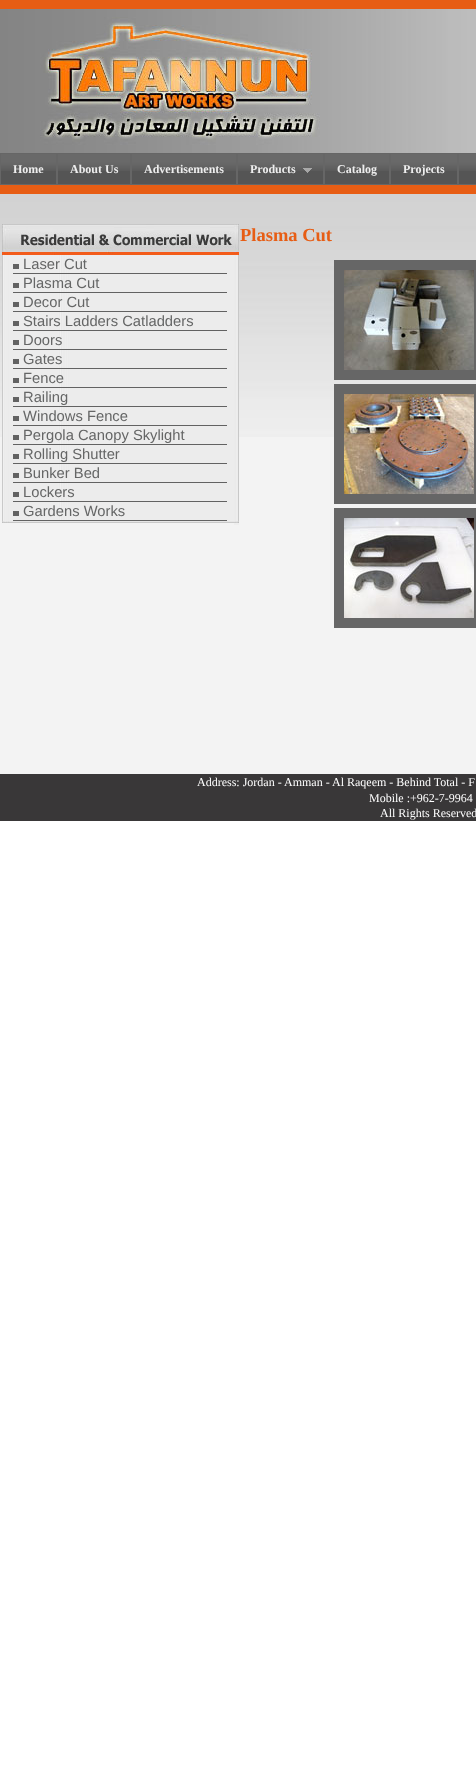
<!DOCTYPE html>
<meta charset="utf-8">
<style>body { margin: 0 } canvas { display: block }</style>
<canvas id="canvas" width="476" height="1765"></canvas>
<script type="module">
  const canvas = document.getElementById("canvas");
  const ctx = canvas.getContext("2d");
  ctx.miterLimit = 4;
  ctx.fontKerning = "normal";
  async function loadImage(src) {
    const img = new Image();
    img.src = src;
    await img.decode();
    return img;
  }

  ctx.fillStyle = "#ffffff";
  ctx.fillRect(0, 0, 476, 1765);
  ctx.fillStyle = "#e75d14";
  ctx.fillRect(0, 0, 476, 9);
  ctx.drawImage(await loadImage("img1.png"), 0, 9, 322, 144);
  ctx.drawImage(await loadImage("img2.png"), 322, 9, 154, 144);
  ctx.fillStyle = "#555555";
  ctx.fillRect(1, 171, 55, 13);
  ctx.drawImage(await loadImage("img3.png"), 1, 154, 55, 17);
  ctx.strokeStyle = "#666666";
  ctx.strokeRect(0.5, 153.5, 56, 31);
  ctx.font = "bold 12px Liberation Serif";
  ctx.fillStyle = "#eeeeee";
  ctx.fillText("Home", 13, 173);
  ctx.fillStyle = "#555555";
  ctx.fillRect(58, 171, 72, 13);
  ctx.drawImage(await loadImage("img4.png"), 58, 154, 72, 17);
  ctx.strokeRect(57.5, 153.5, 73, 31);
  ctx.fillStyle = "#eeeeee";
  ctx.fillText("About Us", 70, 173);
  ctx.fillStyle = "#555555";
  ctx.fillRect(132, 171, 104, 13);
  ctx.drawImage(await loadImage("img5.png"), 132, 154, 104, 17);
  ctx.strokeRect(131.5, 153.5, 105, 31);
  ctx.fillStyle = "#eeeeee";
  ctx.fillText("Advertisements", 144, 173);
  ctx.fillStyle = "#555555";
  ctx.fillRect(238, 171, 85, 13);
  ctx.drawImage(await loadImage("img6.png"), 238, 154, 85, 17);
  ctx.strokeRect(237.5, 153.5, 86, 31);
  ctx.fillStyle = "#eeeeee";
  ctx.fillText("Products", 250, 173);
  ctx.drawImage(await loadImage("img7.png"), 303, 168, 9, 5);
  ctx.fillStyle = "#555555";
  ctx.fillRect(325, 171, 64, 13);
  ctx.drawImage(await loadImage("img8.png"), 325, 154, 64, 17);
  ctx.strokeRect(324.5, 153.5, 65, 31);
  ctx.fillStyle = "#eeeeee";
  ctx.fillText("Catalog", 337, 173);
  ctx.fillStyle = "#555555";
  ctx.fillRect(391, 171, 66, 13);
  ctx.drawImage(await loadImage("img9.png"), 391, 154, 66, 17);
  ctx.strokeRect(390.5, 153.5, 67, 31);
  ctx.fillStyle = "#eeeeee";
  ctx.fillText("Projects", 403, 173);
  ctx.fillStyle = "#555555";
  ctx.fillRect(459, 171, 17, 13);
  ctx.drawImage(await loadImage("img10.png"), 459, 154, 17, 17);
  ctx.strokeRect(458.5, 153.5, 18, 31);
  ctx.fillStyle = "#e75d14";
  ctx.fillRect(0, 185, 476, 9);
  ctx.drawImage(await loadImage("img11.png"), 240, 194, 236, 243);
  ctx.font = "bold 18.5px Liberation Serif";
  ctx.fillText("Plasma Cut", 240, 241);
  ctx.fillStyle = "#666666";
  ctx.fillRect(334, 260, 142, 120);
  ctx.drawImage(await loadImage("img12.png"), 344, 270, 130, 100);
  ctx.fillStyle = "#f3f3f3";
  ctx.fillRect(0, 437, 476, 337);
  ctx.fillStyle = "#666666";
  ctx.fillRect(334, 384, 142, 120);
  ctx.drawImage(await loadImage("img13.png"), 344, 394, 130, 100);
  ctx.fillRect(334, 508, 142, 120);
  ctx.drawImage(await loadImage("img14.png"), 344, 518, 130, 100);
  ctx.drawImage(await loadImage("img15.png"), 0, 194, 240, 243);
  ctx.drawImage(await loadImage("img16.png"), 2, 224, 237, 31);
  ctx.drawImage(await loadImage("img17.png"), 2, 255, 237, 266);
  ctx.fillStyle = "#626262";
  ctx.fillRect(13, 264, 6, 5);
  ctx.font = "14.75px Liberation Sans";
  ctx.fillStyle = "#656666";
  ctx.fillText("Laser Cut", 23, 269);
  ctx.fillStyle = "#626262";
  ctx.fillRect(13, 273, 214, 1);
  ctx.fillRect(13, 283, 6, 5);
  ctx.fillStyle = "#656666";
  ctx.fillText("Plasma Cut", 23, 288);
  ctx.fillStyle = "#626262";
  ctx.fillRect(13, 292, 214, 1);
  ctx.fillRect(13, 302, 6, 5);
  ctx.fillStyle = "#656666";
  ctx.fillText("Decor Cut", 23, 307);
  ctx.fillStyle = "#626262";
  ctx.fillRect(13, 311, 214, 1);
  ctx.fillRect(13, 321, 6, 5);
  ctx.fillStyle = "#656666";
  ctx.fillText("Stairs Ladders Catladders", 23, 326);
  ctx.fillStyle = "#626262";
  ctx.fillRect(13, 330, 214, 1);
  ctx.fillRect(13, 340, 6, 5);
  ctx.fillStyle = "#656666";
  ctx.fillText("Doors", 23, 345);
  ctx.fillStyle = "#626262";
  ctx.fillRect(13, 349, 214, 1);
  ctx.fillRect(13, 359, 6, 5);
  ctx.fillStyle = "#656666";
  ctx.fillText("Gates", 23, 364);
  ctx.fillStyle = "#626262";
  ctx.fillRect(13, 368, 214, 1);
  ctx.fillRect(13, 378, 6, 5);
  ctx.fillStyle = "#656666";
  ctx.fillText("Fence", 23, 383);
  ctx.fillStyle = "#626262";
  ctx.fillRect(13, 387, 214, 1);
  ctx.fillRect(13, 397, 6, 5);
  ctx.fillStyle = "#656666";
  ctx.fillText("Railing", 23, 402);
  ctx.fillStyle = "#626262";
  ctx.fillRect(13, 406, 214, 1);
  ctx.fillRect(13, 416, 6, 5);
  ctx.fillStyle = "#656666";
  ctx.fillText("Windows Fence", 23, 421);
  ctx.fillStyle = "#626262";
  ctx.fillRect(13, 425, 214, 1);
  ctx.fillRect(13, 435, 6, 5);
  ctx.fillStyle = "#656666";
  ctx.fillText("Pergola Canopy Skylight", 23, 440);
  ctx.fillStyle = "#626262";
  ctx.fillRect(13, 444, 214, 1);
  ctx.fillRect(13, 454, 6, 5);
  ctx.fillStyle = "#656666";
  ctx.fillText("Rolling Shutter", 23, 459);
  ctx.fillStyle = "#626262";
  ctx.fillRect(13, 463, 214, 1);
  ctx.fillRect(13, 473, 6, 5);
  ctx.fillStyle = "#656666";
  ctx.fillText("Bunker Bed", 23, 478);
  ctx.fillStyle = "#626262";
  ctx.fillRect(13, 482, 214, 1);
  ctx.fillRect(13, 492, 6, 5);
  ctx.fillStyle = "#656666";
  ctx.fillText("Lockers", 23, 497);
  ctx.fillStyle = "#626262";
  ctx.fillRect(13, 501, 214, 1);
  ctx.fillRect(13, 511, 6, 5);
  ctx.fillStyle = "#656666";
  ctx.fillText("Gardens Works", 23, 516);
  ctx.fillStyle = "#626262";
  ctx.fillRect(13, 520, 214, 1);
  ctx.drawImage(await loadImage("img18.png"), 2, 521, 237, 2);
  ctx.fillStyle = "#eeeeee";
  ctx.fillRect(234, 523, 5, 2);
  ctx.fillStyle = "#393738";
  ctx.fillRect(0, 774, 476, 47);
  ctx.font = "12px Liberation Serif";
  ctx.fillStyle = "#ffffff";
  ctx.fillText("Address: Jordan - Amman - Al Raqeem - Behind Total - F", 197, 786);
  ctx.fillText("Mobile :+962-7-9964", 369, 802);
  ctx.fillText("All Rights Reserved", 380, 817);
</script>
